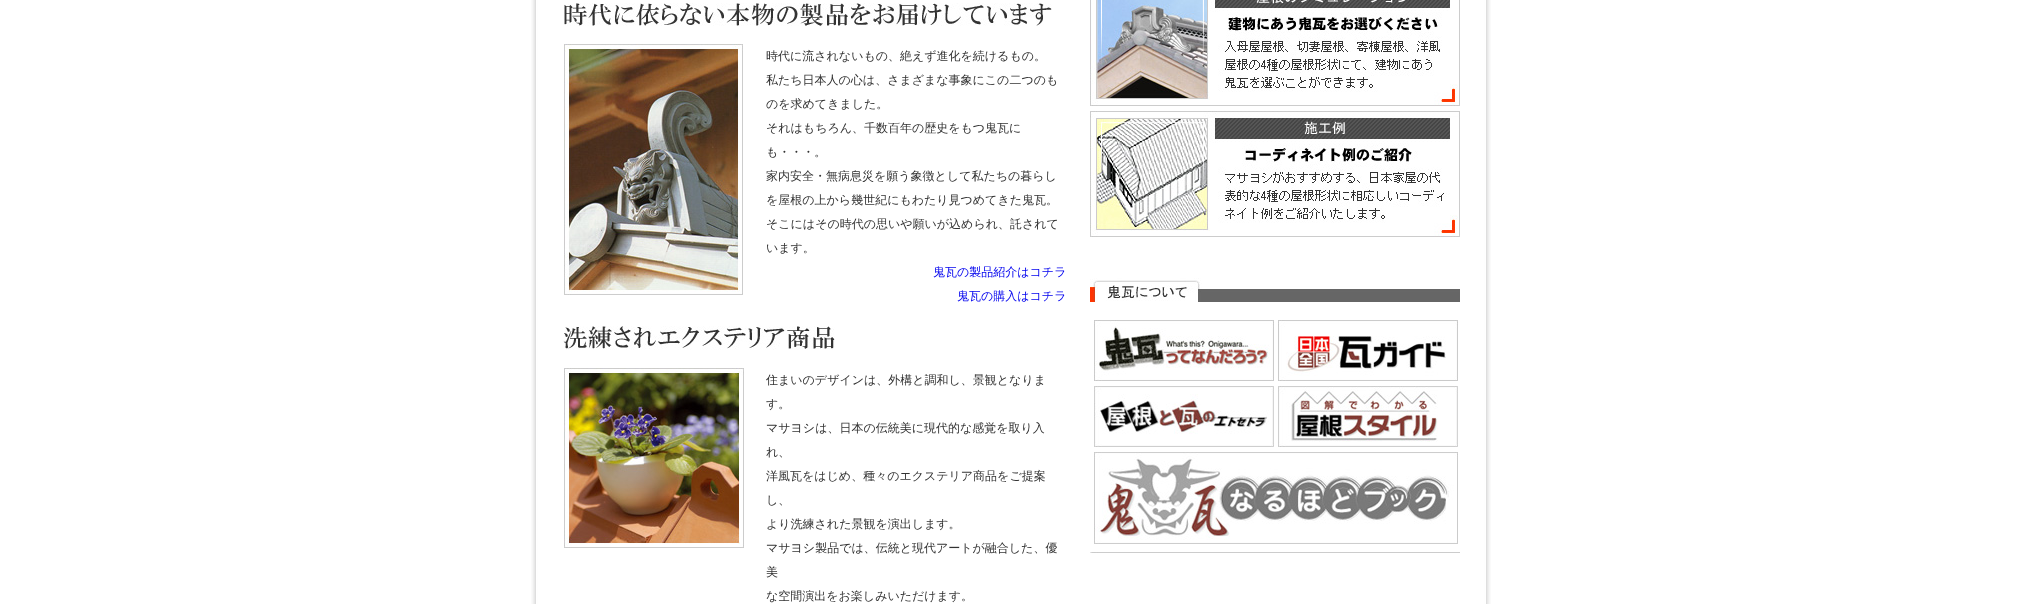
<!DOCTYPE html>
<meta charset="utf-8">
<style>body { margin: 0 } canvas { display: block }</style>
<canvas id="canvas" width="2022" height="604"></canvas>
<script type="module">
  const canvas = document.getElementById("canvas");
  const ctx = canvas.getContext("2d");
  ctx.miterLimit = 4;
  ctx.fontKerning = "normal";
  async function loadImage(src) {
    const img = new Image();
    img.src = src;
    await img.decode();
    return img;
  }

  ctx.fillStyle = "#ffffff";
  ctx.fillRect(0, 0, 2022, 604);
  ctx.drawImage(await loadImage("img1.png"), 531, 0, 960, 604);
  ctx.drawImage(await loadImage("img2.png"), 564, 3, 488, 23);
  ctx.drawImage(await loadImage("img3.png"), 564, 44, 179, 251);
  ctx.font = "500 12px WenQuanYi Zen Hei";
  ctx.fillStyle = "#333333";
  ctx.fillText("時代に流されないもの、絶えず進化を続けるもの。", 766, 60);
  ctx.fillText("私たち日本人の心は、さまざまな事象にこの二つのも", 766, 84);
  ctx.fillText("のを求めてきました。", 766, 108);
  ctx.fillText("それはもちろん、千数百年の歴史をもつ鬼瓦に", 766, 132);
  ctx.fillText("も・・・。", 766, 156);
  ctx.fillText("家内安全・無病息災を願う象徴として私たちの暮らし", 766, 180);
  ctx.fillText("を屋根の上から幾世紀にもわたり見つめてきた鬼瓦。", 766, 204);
  ctx.fillText("そこにはその時代の思いや願いが込められ、託されて", 766, 228);
  ctx.fillText("います。", 766, 252);
  ctx.fillStyle = "#0000ee";
  ctx.fillText("鬼瓦の製品紹介はコチラ", 933, 276);
  ctx.fillText("鬼瓦の購入はコチラ", 957, 300);
  ctx.drawImage(await loadImage("img4.png"), 563, 326, 272, 24);
  ctx.drawImage(await loadImage("img5.png"), 564, 368, 180, 180);
  ctx.fillStyle = "#333333";
  ctx.fillText("住まいのデザインは、外構と調和し、景観となりま", 766, 384);
  ctx.fillText("す。", 766, 408);
  ctx.fillText("マサヨシは、日本の伝統美に現代的な感覚を取り入", 766, 432);
  ctx.fillText("れ、", 766, 456);
  ctx.fillText("洋風瓦をはじめ、種々のエクステリア商品をご提案", 766, 480);
  ctx.fillText("し、", 766, 504);
  ctx.fillText("より洗練された景観を演出します。", 766, 528);
  ctx.fillText("マサヨシ製品では、伝統と現代アートが融合した、優", 766, 552);
  ctx.fillText("美", 766, 576);
  ctx.fillText("な空間演出をお楽しみいただけます。", 766, 600);
  ctx.drawImage(await loadImage("img6.png"), 1090, 0, 370, 106);
  ctx.drawImage(await loadImage("img7.png"), 1090, 111, 370, 126);
  ctx.drawImage(await loadImage("img8.png"), 1090, 278, 370, 24);
  ctx.drawImage(await loadImage("img9.png"), 1094, 320, 180, 61);
  ctx.drawImage(await loadImage("img10.png"), 1278, 320, 180, 61);
  ctx.drawImage(await loadImage("img11.png"), 1094, 386, 180, 61);
  ctx.drawImage(await loadImage("img12.png"), 1278, 386, 180, 61);
  ctx.drawImage(await loadImage("img13.png"), 1094, 452, 364, 92);
  ctx.drawImage(await loadImage("img14.png"), 1090, 552, 370, 1);
</script>
